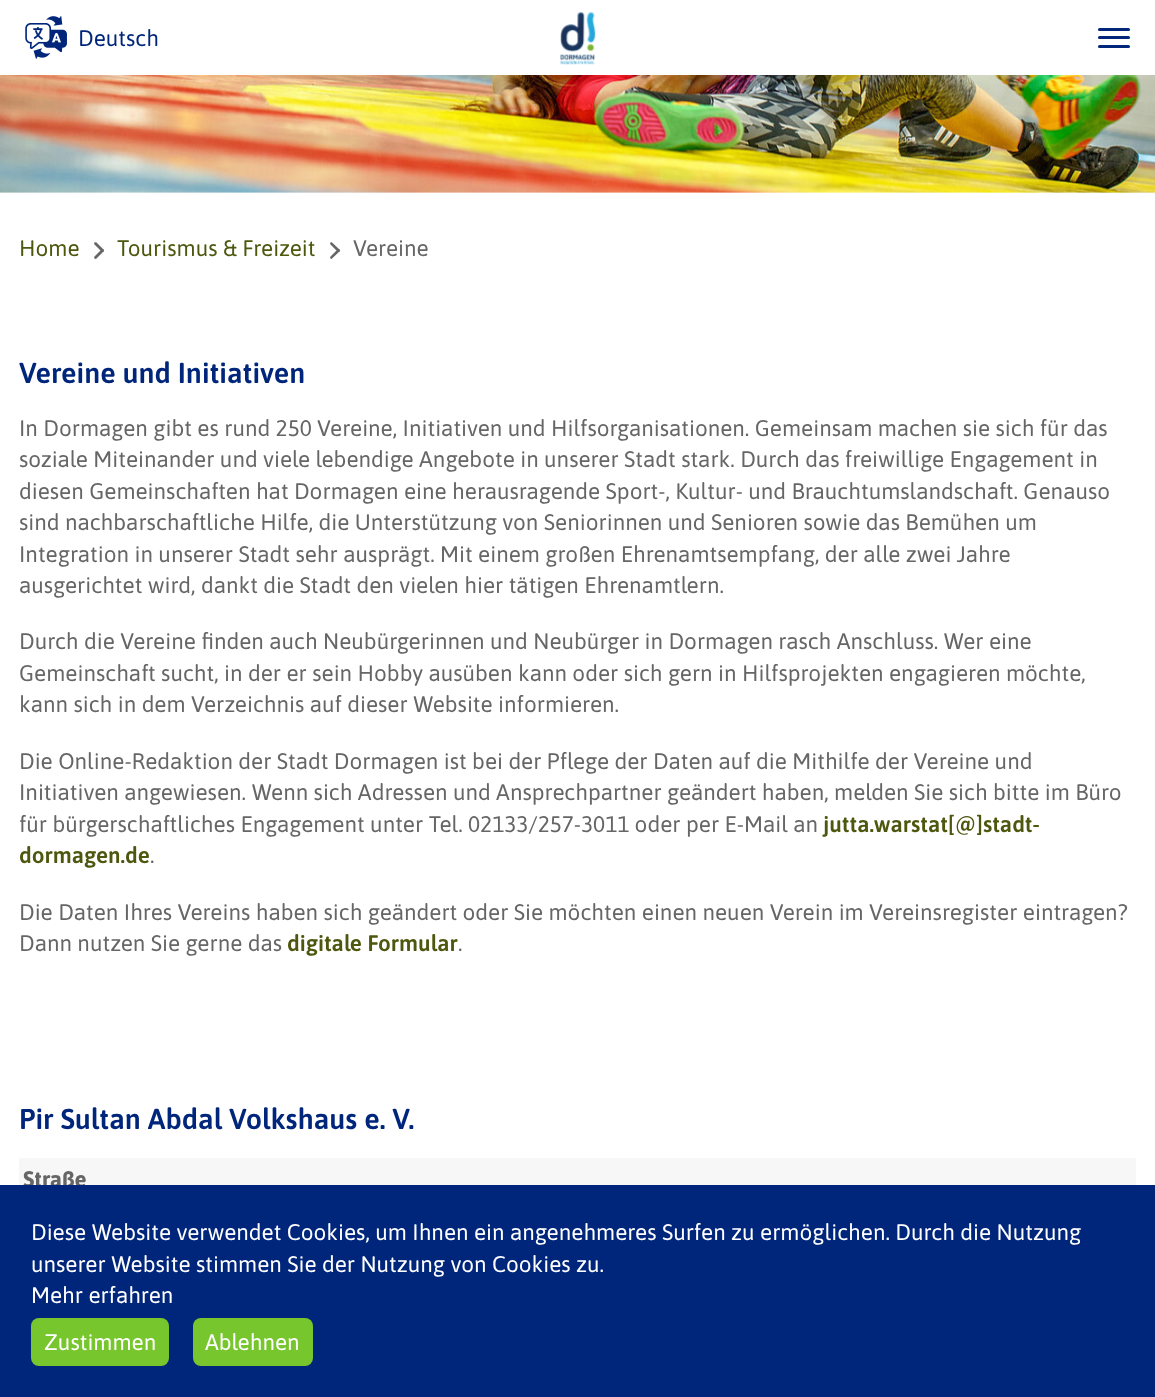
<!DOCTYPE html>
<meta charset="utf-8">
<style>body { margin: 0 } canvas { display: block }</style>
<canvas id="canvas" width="1155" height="1397"></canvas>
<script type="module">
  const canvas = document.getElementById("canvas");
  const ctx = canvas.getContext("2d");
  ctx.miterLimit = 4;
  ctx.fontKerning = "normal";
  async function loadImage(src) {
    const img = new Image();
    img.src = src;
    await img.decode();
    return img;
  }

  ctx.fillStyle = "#ffffff";
  ctx.fillRect(0, 0, 1155, 1397);
  ctx.drawImage(await loadImage("img1.png"), 25, 16, 42, 43);
  ctx.font = "22.5px Asap";
  ctx.fillStyle = "#00267b";
  ctx.fillText("Deutsch", 78, 46);
  ctx.beginPath();
  ctx.roundRect(1098, 28, 32, 3, 1.5);
  ctx.fill();
  ctx.beginPath();
  ctx.roundRect(1098, 36, 32, 3, 1.5);
  ctx.fill();
  ctx.beginPath();
  ctx.roundRect(1098, 45, 32, 3, 1.5);
  ctx.fill();
  ctx.drawImage(await loadImage("img2.png"), 560, 11, 36, 54);
  ctx.drawImage(await loadImage("img3.png"), 0, 75, 1155, 118);
  ctx.fillStyle = "#4d570e";
  ctx.fillText("Home", 19, 256);
  ctx.fillStyle = "#666666";
  ctx.beginPath();
  ctx.moveTo(96.5, 242.5);
  ctx.lineTo(103.5, 249.5);
  ctx.bezierCurveTo(104, 250, 104, 251, 103.5, 251.5);
  ctx.bezierCurveTo(103, 252, 102, 252, 101.5, 251.5);
  ctx.lineTo(94.5, 244.5);
  ctx.bezierCurveTo(94, 244, 94, 243, 94.5, 242.5);
  ctx.bezierCurveTo(95, 242, 96, 242, 96.5, 242.5);
  ctx.closePath();
  ctx.fill();
  ctx.beginPath();
  ctx.moveTo(94.5, 256.5);
  ctx.lineTo(101.5, 249.5);
  ctx.bezierCurveTo(102, 249, 103, 249, 103.5, 249.5);
  ctx.bezierCurveTo(104, 250, 104, 251, 103.5, 251.5);
  ctx.lineTo(96.5, 258.5);
  ctx.bezierCurveTo(96, 259, 95, 259, 94.5, 258.5);
  ctx.bezierCurveTo(94, 258, 94, 257, 94.5, 256.5);
  ctx.closePath();
  ctx.fill();
  ctx.fillStyle = "#4d570e";
  ctx.fillText("Tourismus & Freizeit", 117, 256);
  ctx.fillStyle = "#666666";
  ctx.beginPath();
  ctx.moveTo(332, 242.5);
  ctx.lineTo(339.5, 249.5);
  ctx.bezierCurveTo(340, 250, 340, 251, 339.5, 251.5);
  ctx.bezierCurveTo(339, 252, 338, 252, 337.5, 251.5);
  ctx.lineTo(330.5, 244.5);
  ctx.bezierCurveTo(330, 244, 330, 243, 330.5, 242.5);
  ctx.bezierCurveTo(331, 242, 332, 242, 332, 242.5);
  ctx.closePath();
  ctx.fill();
  ctx.beginPath();
  ctx.moveTo(330.5, 256.5);
  ctx.lineTo(337.5, 249.5);
  ctx.bezierCurveTo(338, 249, 339, 249, 339.5, 249.5);
  ctx.bezierCurveTo(340, 250, 340, 251, 339.5, 251.5);
  ctx.lineTo(332, 258.5);
  ctx.bezierCurveTo(332, 259, 331, 259, 330.5, 258.5);
  ctx.bezierCurveTo(330, 258, 330, 257, 330.5, 256.5);
  ctx.closePath();
  ctx.fill();
  ctx.fillText("Vereine", 353, 256);
  ctx.font = "600 28.75px Asap";
  ctx.fillStyle = "#00267b";
  ctx.fillText("Vereine und Initiativen", 19, 383);
  ctx.font = "22.5px Asap";
  ctx.fillStyle = "#666666";
  ctx.fillText("In Dormagen gibt es rund 250 Vereine, Initiativen und Hilfsorganisationen. Gemeinsam machen sie sich für das", 19, 436);
  ctx.fillText("soziale Miteinander und viele lebendige Angebote in unserer Stadt stark. Durch das freiwillige Engagement in", 19, 467);
  ctx.fillText("diesen Gemeinschaften hat Dormagen eine herausragende Sport-, Kultur- und Brauchtumslandschaft. Genauso", 19, 499);
  ctx.fillText("sind nachbarschaftliche Hilfe, die Unterstützung von Seniorinnen und Senioren sowie das Bemühen um", 19, 530);
  ctx.fillText("Integration in unserer Stadt sehr ausprägt. Mit einem großen Ehrenamtsempfang, der alle zwei Jahre", 19, 562);
  ctx.fillText("ausgerichtet wird, dankt die Stadt den vielen hier tätigen Ehrenamtlern.", 19, 593);
  ctx.fillText("Durch die Vereine finden auch Neubürgerinnen und Neubürger in Dormagen rasch Anschluss. Wer eine", 19, 649);
  ctx.fillText("Gemeinschaft sucht, in der er sein Hobby ausüben kann oder sich gern in Hilfsprojekten engagieren möchte,", 19, 681);
  ctx.fillText("kann sich in dem Verzeichnis auf dieser Website informieren.", 19, 712);
  ctx.fillText("Die Online-Redaktion der Stadt Dormagen ist bei der Pflege der Daten auf die Mithilfe der Vereine und", 19, 769);
  ctx.fillText("Initiativen angewiesen. Wenn sich Adressen und Ansprechpartner geändert haben, melden Sie sich bitte im Büro", 19, 800);
  ctx.fillText("für bürgerschaftliches Engagement unter Tel. 02133/257-3011 oder per E-Mail an", 19, 832);
  ctx.font = "600 22.5px Asap";
  ctx.fillStyle = "#4d570e";
  ctx.fillText("jutta.warstat[@]stadt-", 823, 832);
  ctx.fillText("dormagen.de", 19, 863);
  ctx.font = "22.5px Asap";
  ctx.fillStyle = "#666666";
  ctx.fillText(".", 150, 863);
  ctx.fillText("Die Daten Ihres Vereins haben sich geändert oder Sie möchten einen neuen Verein im Vereinsregister eintragen?", 19, 920);
  ctx.fillText("Dann nutzen Sie gerne das", 19, 951);
  ctx.font = "600 22.5px Asap";
  ctx.fillStyle = "#4d570e";
  ctx.fillText("digitale Formular", 287, 951);
  ctx.font = "22.5px Asap";
  ctx.fillStyle = "#666666";
  ctx.fillText(".", 458, 951);
  ctx.font = "600 28.75px Asap";
  ctx.fillStyle = "#00267b";
  ctx.fillText("Pir Sultan Abdal Volkshaus e. V.", 19, 1129);
  ctx.fillStyle = "#f7f7f7";
  ctx.fillRect(19, 1158, 1117, 27);
  ctx.font = "bold 22.5px Asap";
  ctx.fillStyle = "#666666";
  ctx.fillText("Straße", 23, 1187);
  ctx.fillStyle = "#00267b";
  ctx.fillRect(0, 1185, 1155, 212);
  ctx.font = "22.5px Asap";
  ctx.fillStyle = "#ffffff";
  ctx.fillText("Diese Website verwendet Cookies, um Ihnen ein angenehmeres Surfen zu ermöglichen. Durch die Nutzung", 31, 1240);
  ctx.fillText("unserer Website stimmen Sie der Nutzung von Cookies zu.", 31, 1272);
  ctx.fillText("Mehr erfahren", 31, 1303);
  ctx.fillStyle = "#77c62d";
  ctx.beginPath();
  ctx.roundRect(31, 1318, 138, 48, 8);
  ctx.fill();
  ctx.fillStyle = "#ffffff";
  ctx.fillText("Zustimmen", 44, 1350);
  ctx.fillStyle = "#77c62d";
  ctx.beginPath();
  ctx.roundRect(193, 1318, 120, 48, 8);
  ctx.fill();
  ctx.fillStyle = "#ffffff";
  ctx.fillText("Ablehnen", 205, 1350);
</script>
